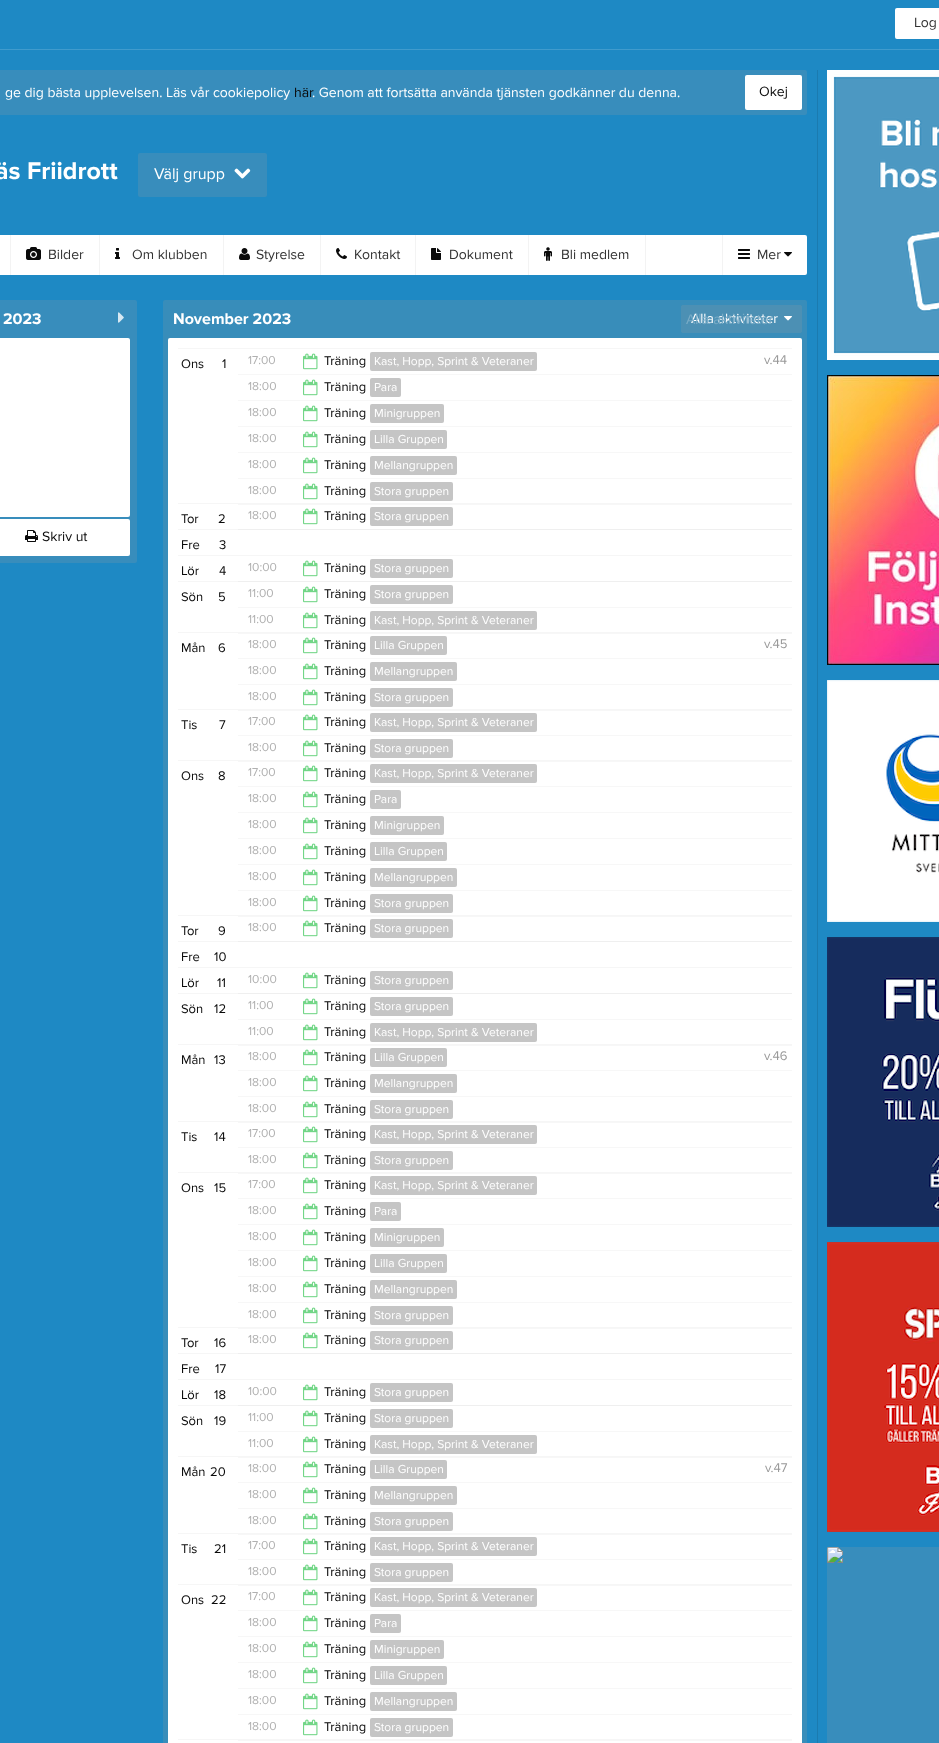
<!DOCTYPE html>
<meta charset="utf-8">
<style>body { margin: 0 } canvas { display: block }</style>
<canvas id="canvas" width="939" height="1743"></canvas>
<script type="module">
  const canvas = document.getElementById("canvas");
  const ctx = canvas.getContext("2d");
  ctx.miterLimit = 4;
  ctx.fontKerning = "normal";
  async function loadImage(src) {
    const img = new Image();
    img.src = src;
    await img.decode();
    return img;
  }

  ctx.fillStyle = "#1e89c4";
  ctx.fillRect(0, 0, 939, 1743);
  ctx.fillStyle = "#409bcd";
  ctx.fillRect(0, 49, 939, 1);
  ctx.fillStyle = "#ffffff";
  ctx.beginPath();
  ctx.roundRect(895, 8, 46, 31, 2);
  ctx.fill();
  ctx.font = "14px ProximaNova";
  ctx.fillStyle = "#333333";
  ctx.fillText("Log", 914, 27);
  ctx.fillStyle = "#388dbc";
  ctx.beginPath();
  ctx.roundRect(-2, 70, 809, 45, 2);
  ctx.fill();
  ctx.fillStyle = "#ffffff";
  ctx.fillText("ge dig bästa upplevelsen. Läs vår cookiepolicy", 5, 97);
  ctx.fillStyle = "#0a0a0a";
  ctx.fillText("här", 294, 97);
  ctx.fillStyle = "#ffffff";
  ctx.fillText(". Genom att fortsätta använda tjänsten godkänner du denna.", 312, 97);
  ctx.beginPath();
  ctx.roundRect(745, 75, 57, 35, 2);
  ctx.fill();
  ctx.fillStyle = "#0a0a0a";
  ctx.fillText("Okej", 759, 96);
  ctx.font = "bold 25px ProximaNova";
  ctx.fillStyle = "#ffffff";
  ctx.fillText("äs Friidrott", -5, 179);
  ctx.fillStyle = "#388dbc";
  ctx.beginPath();
  ctx.roundRect(138, 153, 129, 44, 2);
  ctx.fill();
  ctx.font = "16px ProximaNova";
  ctx.fillStyle = "#ffffff";
  ctx.fillText("Välj grupp", 154, 179);
  ctx.drawImage(await loadImage("img1.png"), 234, 168, 17, 11);
  ctx.beginPath();
  ctx.roundRect(-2, 235, 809, 40, 2);
  ctx.fill();
  ctx.fillStyle = "#f3f3f3";
  ctx.fillRect(10, 235, 1, 40);
  ctx.fillRect(99, 235, 1, 40);
  ctx.drawImage(await loadImage("img2.png"), 26, 247, 15, 13);
  ctx.font = "14px ProximaNova";
  ctx.fillStyle = "#333333";
  ctx.fillText("Bilder", 48, 259);
  ctx.fillStyle = "#f3f3f3";
  ctx.fillRect(223, 235, 1, 40);
  ctx.drawImage(await loadImage("img3.png"), 115, 248, 5, 11);
  ctx.fillStyle = "#333333";
  ctx.fillText("Om klubben", 132, 259);
  ctx.fillStyle = "#f3f3f3";
  ctx.fillRect(320, 235, 1, 40);
  ctx.drawImage(await loadImage("img4.png"), 239, 248, 11, 12);
  ctx.fillStyle = "#333333";
  ctx.fillText("Styrelse", 256, 259);
  ctx.fillStyle = "#f3f3f3";
  ctx.fillRect(415, 235, 1, 40);
  ctx.drawImage(await loadImage("img5.png"), 336, 248, 11, 11);
  ctx.fillStyle = "#333333";
  ctx.fillText("Kontakt", 354, 259);
  ctx.fillStyle = "#f3f3f3";
  ctx.fillRect(528, 235, 1, 40);
  ctx.drawImage(await loadImage("img6.png"), 431, 248, 10, 12);
  ctx.fillStyle = "#333333";
  ctx.fillText("Dokument", 449, 259);
  ctx.fillStyle = "#f3f3f3";
  ctx.fillRect(645, 235, 1, 40);
  ctx.drawImage(await loadImage("img7.png"), 544, 247, 8, 14);
  ctx.fillStyle = "#333333";
  ctx.fillText("Bli medlem", 561, 259);
  ctx.fillStyle = "#f3f3f3";
  ctx.fillRect(722, 235, 1, 40);
  ctx.drawImage(await loadImage("img8.png"), 738, 249, 12, 10);
  ctx.fillStyle = "#333333";
  ctx.fillText("Mer", 757, 259);
  ctx.drawImage(await loadImage("img9.png"), 784, 252, 8, 5);
  ctx.fillStyle = "#388dbc";
  ctx.beginPath();
  ctx.roundRect(-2, 300, 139, 263, 2);
  ctx.fill();
  ctx.font = "bold 16px ProximaNova";
  ctx.fillStyle = "#ffffff";
  ctx.fillText("2023", 3, 324);
  ctx.drawImage(await loadImage("img10.png"), 118, 312, 6, 11);
  ctx.beginPath();
  ctx.roundRect(-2, 338, 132, 179, 2);
  ctx.fill();
  ctx.beginPath();
  ctx.roundRect(-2, 519, 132, 37, 2);
  ctx.fill();
  ctx.drawImage(await loadImage("img11.png"), 25, 530, 13, 12);
  ctx.font = "14px ProximaNova";
  ctx.fillStyle = "#0a0a0a";
  ctx.fillText("Skriv ut", 42, 541);
  ctx.fillStyle = "#388dba";
  ctx.beginPath();
  ctx.roundRect(163, 300, 644, 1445, 2);
  ctx.fill();
  ctx.font = "bold 16px ProximaNova";
  ctx.fillStyle = "#ffffff";
  ctx.fillText("November 2023", 173, 324);
  ctx.fillStyle = "#4c90b4";
  ctx.beginPath();
  ctx.roundRect(681, 305, 121, 28, 2);
  ctx.fill();
  ctx.drawImage(await loadImage("img12.png"), 784, 316, 8, 5);
  ctx.beginPath();
  ctx.roundRect(681.5, 305.5, 120, 27, 1.5);
  ctx.strokeStyle = "#4c90b4";
  ctx.stroke();
  ctx.font = "14px ProximaNova";
  ctx.fillStyle = "#ffffff";
  ctx.fillText("Alla aktiviteter", 691, 323);
  ctx.font = "14px Liberation Sans";
  ctx.fillStyle = "#78abc6";
  ctx.fillText("Alla aktiviteter", 686, 324);
  ctx.fillStyle = "#ffffff";
  ctx.beginPath();
  ctx.roundRect(168, 338, 634, 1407, 2);
  ctx.fill();
  ctx.fillStyle = "#f6f6f6";
  ctx.fillRect(178, 348, 614, 1);
  ctx.font = "13px ProximaNova";
  ctx.fillStyle = "#0a0a0a";
  ctx.fillText("Ons", 181, 368);
  ctx.fillText("1", 222, 368);
  ctx.fillStyle = "#f7f7f7";
  ctx.fillRect(238, 374, 554, 1);
  ctx.font = "12px ProximaNova";
  ctx.fillStyle = "#b0b0b0";
  ctx.fillText("17:00", 248, 364);
  ctx.drawImage(await loadImage("img13.png"), 303, 353, 15, 17);
  ctx.font = "13px ProximaNova";
  ctx.fillStyle = "#000000";
  ctx.fillText("Träning", 324, 365);
  ctx.fillStyle = "#c5c5c5";
  ctx.beginPath();
  ctx.roundRect(370, 352, 167, 19, 2);
  ctx.fill();
  ctx.font = "12px ProximaNova";
  ctx.fillStyle = "#ffffff";
  ctx.fillText("Kast, Hopp, Sprint & Veteraner", 374, 365);
  ctx.fillStyle = "#f7f7f7";
  ctx.fillRect(238, 400, 554, 1);
  ctx.fillStyle = "#b0b0b0";
  ctx.fillText("18:00", 248, 390);
  ctx.drawImage(await loadImage("img13.png"), 303, 379, 15, 17);
  ctx.font = "13px ProximaNova";
  ctx.fillStyle = "#000000";
  ctx.fillText("Träning", 324, 391);
  ctx.fillStyle = "#c5c5c5";
  ctx.beginPath();
  ctx.roundRect(370, 378, 31, 19, 2);
  ctx.fill();
  ctx.font = "12px ProximaNova";
  ctx.fillStyle = "#ffffff";
  ctx.fillText("Para", 374, 391);
  ctx.fillStyle = "#f7f7f7";
  ctx.fillRect(238, 426, 554, 1);
  ctx.fillStyle = "#b0b0b0";
  ctx.fillText("18:00", 248, 416);
  ctx.drawImage(await loadImage("img13.png"), 303, 405, 15, 17);
  ctx.font = "13px ProximaNova";
  ctx.fillStyle = "#000000";
  ctx.fillText("Träning", 324, 417);
  ctx.fillStyle = "#c5c5c5";
  ctx.beginPath();
  ctx.roundRect(370, 404, 74, 19, 2);
  ctx.fill();
  ctx.font = "12px ProximaNova";
  ctx.fillStyle = "#ffffff";
  ctx.fillText("Minigruppen", 374, 417);
  ctx.fillStyle = "#f7f7f7";
  ctx.fillRect(238, 452, 554, 1);
  ctx.fillStyle = "#b0b0b0";
  ctx.fillText("18:00", 248, 442);
  ctx.drawImage(await loadImage("img13.png"), 303, 431, 15, 17);
  ctx.font = "13px ProximaNova";
  ctx.fillStyle = "#000000";
  ctx.fillText("Träning", 324, 443);
  ctx.fillStyle = "#c5c5c5";
  ctx.beginPath();
  ctx.roundRect(370, 430, 77, 19, 2);
  ctx.fill();
  ctx.font = "12px ProximaNova";
  ctx.fillStyle = "#ffffff";
  ctx.fillText("Lilla Gruppen", 374, 443);
  ctx.fillStyle = "#f7f7f7";
  ctx.fillRect(238, 478, 554, 1);
  ctx.fillStyle = "#b0b0b0";
  ctx.fillText("18:00", 248, 468);
  ctx.drawImage(await loadImage("img13.png"), 303, 457, 15, 17);
  ctx.font = "13px ProximaNova";
  ctx.fillStyle = "#000000";
  ctx.fillText("Träning", 324, 469);
  ctx.fillStyle = "#c5c5c5";
  ctx.beginPath();
  ctx.roundRect(370, 456, 87, 19, 2);
  ctx.fill();
  ctx.font = "12px ProximaNova";
  ctx.fillStyle = "#ffffff";
  ctx.fillText("Mellangruppen", 374, 469);
  ctx.fillStyle = "#f7f7f7";
  ctx.fillRect(238, 504, 554, 1);
  ctx.fillStyle = "#b0b0b0";
  ctx.fillText("18:00", 248, 494);
  ctx.drawImage(await loadImage("img13.png"), 303, 483, 15, 17);
  ctx.font = "13px ProximaNova";
  ctx.fillStyle = "#000000";
  ctx.fillText("Träning", 324, 495);
  ctx.fillStyle = "#c5c5c5";
  ctx.beginPath();
  ctx.roundRect(370, 482, 83, 19, 2);
  ctx.fill();
  ctx.font = "12px ProximaNova";
  ctx.fillStyle = "#ffffff";
  ctx.fillText("Stora gruppen", 374, 495);
  ctx.font = "13px ProximaNova";
  ctx.fillStyle = "#999999";
  ctx.fillText("v.44", 764, 364);
  ctx.fillStyle = "#f6f6f6";
  ctx.fillRect(178, 503, 614, 1);
  ctx.fillStyle = "#0a0a0a";
  ctx.fillText("Tor", 181, 523);
  ctx.fillText("2", 218, 523);
  ctx.fillStyle = "#efefef";
  ctx.fillRect(238, 529, 554, 1);
  ctx.font = "12px ProximaNova";
  ctx.fillStyle = "#b0b0b0";
  ctx.fillText("18:00", 248, 519);
  ctx.drawImage(await loadImage("img13.png"), 303, 508, 15, 17);
  ctx.font = "13px ProximaNova";
  ctx.fillStyle = "#000000";
  ctx.fillText("Träning", 324, 520);
  ctx.fillStyle = "#c5c5c5";
  ctx.beginPath();
  ctx.roundRect(370, 507, 83, 19, 2);
  ctx.fill();
  ctx.font = "12px ProximaNova";
  ctx.fillStyle = "#ffffff";
  ctx.fillText("Stora gruppen", 374, 520);
  ctx.fillStyle = "#f6f6f6";
  ctx.fillRect(178, 529, 60, 1);
  ctx.font = "13px ProximaNova";
  ctx.fillStyle = "#0a0a0a";
  ctx.fillText("Fre", 181, 549);
  ctx.fillText("3", 219, 549);
  ctx.fillStyle = "#f6f6f6";
  ctx.fillRect(178, 555, 614, 1);
  ctx.fillStyle = "#0a0a0a";
  ctx.fillText("Lör", 181, 575);
  ctx.fillText("4", 219, 575);
  ctx.fillStyle = "#efefef";
  ctx.fillRect(238, 581, 554, 1);
  ctx.font = "12px ProximaNova";
  ctx.fillStyle = "#b0b0b0";
  ctx.fillText("10:00", 248, 571);
  ctx.drawImage(await loadImage("img13.png"), 303, 560, 15, 17);
  ctx.font = "13px ProximaNova";
  ctx.fillStyle = "#000000";
  ctx.fillText("Träning", 324, 572);
  ctx.fillStyle = "#c5c5c5";
  ctx.beginPath();
  ctx.roundRect(370, 559, 83, 19, 2);
  ctx.fill();
  ctx.font = "12px ProximaNova";
  ctx.fillStyle = "#ffffff";
  ctx.fillText("Stora gruppen", 374, 572);
  ctx.fillStyle = "#f6f6f6";
  ctx.fillRect(178, 581, 60, 1);
  ctx.font = "13px ProximaNova";
  ctx.fillStyle = "#0a0a0a";
  ctx.fillText("Sön", 181, 601);
  ctx.fillText("5", 218, 601);
  ctx.fillStyle = "#f7f7f7";
  ctx.fillRect(238, 607, 554, 1);
  ctx.font = "12px ProximaNova";
  ctx.fillStyle = "#b0b0b0";
  ctx.fillText("11:00", 248, 597);
  ctx.drawImage(await loadImage("img13.png"), 303, 586, 15, 17);
  ctx.font = "13px ProximaNova";
  ctx.fillStyle = "#000000";
  ctx.fillText("Träning", 324, 598);
  ctx.fillStyle = "#c5c5c5";
  ctx.beginPath();
  ctx.roundRect(370, 585, 83, 19, 2);
  ctx.fill();
  ctx.font = "12px ProximaNova";
  ctx.fillStyle = "#ffffff";
  ctx.fillText("Stora gruppen", 374, 598);
  ctx.fillStyle = "#f7f7f7";
  ctx.fillRect(238, 633, 554, 1);
  ctx.fillStyle = "#b0b0b0";
  ctx.fillText("11:00", 248, 623);
  ctx.drawImage(await loadImage("img13.png"), 303, 612, 15, 17);
  ctx.font = "13px ProximaNova";
  ctx.fillStyle = "#000000";
  ctx.fillText("Träning", 324, 624);
  ctx.fillStyle = "#c5c5c5";
  ctx.beginPath();
  ctx.roundRect(370, 611, 167, 19, 2);
  ctx.fill();
  ctx.font = "12px ProximaNova";
  ctx.fillStyle = "#ffffff";
  ctx.fillText("Kast, Hopp, Sprint & Veteraner", 374, 624);
  ctx.fillStyle = "#f6f6f6";
  ctx.fillRect(178, 632, 614, 1);
  ctx.font = "13px ProximaNova";
  ctx.fillStyle = "#0a0a0a";
  ctx.fillText("Mån", 181, 652);
  ctx.fillText("6", 218, 652);
  ctx.fillStyle = "#f7f7f7";
  ctx.fillRect(238, 658, 554, 1);
  ctx.font = "12px ProximaNova";
  ctx.fillStyle = "#b0b0b0";
  ctx.fillText("18:00", 248, 648);
  ctx.drawImage(await loadImage("img13.png"), 303, 637, 15, 17);
  ctx.font = "13px ProximaNova";
  ctx.fillStyle = "#000000";
  ctx.fillText("Träning", 324, 649);
  ctx.fillStyle = "#c5c5c5";
  ctx.beginPath();
  ctx.roundRect(370, 636, 77, 19, 2);
  ctx.fill();
  ctx.font = "12px ProximaNova";
  ctx.fillStyle = "#ffffff";
  ctx.fillText("Lilla Gruppen", 374, 649);
  ctx.fillStyle = "#f7f7f7";
  ctx.fillRect(238, 684, 554, 1);
  ctx.fillStyle = "#b0b0b0";
  ctx.fillText("18:00", 248, 674);
  ctx.drawImage(await loadImage("img13.png"), 303, 663, 15, 17);
  ctx.font = "13px ProximaNova";
  ctx.fillStyle = "#000000";
  ctx.fillText("Träning", 324, 675);
  ctx.fillStyle = "#c5c5c5";
  ctx.beginPath();
  ctx.roundRect(370, 662, 87, 19, 2);
  ctx.fill();
  ctx.font = "12px ProximaNova";
  ctx.fillStyle = "#ffffff";
  ctx.fillText("Mellangruppen", 374, 675);
  ctx.fillStyle = "#f7f7f7";
  ctx.fillRect(238, 710, 554, 1);
  ctx.fillStyle = "#b0b0b0";
  ctx.fillText("18:00", 248, 700);
  ctx.drawImage(await loadImage("img13.png"), 303, 689, 15, 17);
  ctx.font = "13px ProximaNova";
  ctx.fillStyle = "#000000";
  ctx.fillText("Träning", 324, 701);
  ctx.fillStyle = "#c5c5c5";
  ctx.beginPath();
  ctx.roundRect(370, 688, 83, 19, 2);
  ctx.fill();
  ctx.font = "12px ProximaNova";
  ctx.fillStyle = "#ffffff";
  ctx.fillText("Stora gruppen", 374, 701);
  ctx.font = "13px ProximaNova";
  ctx.fillStyle = "#999999";
  ctx.fillText("v.45", 764, 648);
  ctx.fillStyle = "#f6f6f6";
  ctx.fillRect(178, 709, 614, 1);
  ctx.fillStyle = "#0a0a0a";
  ctx.fillText("Tis", 181, 729);
  ctx.fillText("7", 219, 729);
  ctx.fillStyle = "#f7f7f7";
  ctx.fillRect(238, 735, 554, 1);
  ctx.font = "12px ProximaNova";
  ctx.fillStyle = "#b0b0b0";
  ctx.fillText("17:00", 248, 725);
  ctx.drawImage(await loadImage("img13.png"), 303, 714, 15, 17);
  ctx.font = "13px ProximaNova";
  ctx.fillStyle = "#000000";
  ctx.fillText("Träning", 324, 726);
  ctx.fillStyle = "#c5c5c5";
  ctx.beginPath();
  ctx.roundRect(370, 713, 167, 19, 2);
  ctx.fill();
  ctx.font = "12px ProximaNova";
  ctx.fillStyle = "#ffffff";
  ctx.fillText("Kast, Hopp, Sprint & Veteraner", 374, 726);
  ctx.fillStyle = "#f7f7f7";
  ctx.fillRect(238, 761, 554, 1);
  ctx.fillStyle = "#b0b0b0";
  ctx.fillText("18:00", 248, 751);
  ctx.drawImage(await loadImage("img13.png"), 303, 740, 15, 17);
  ctx.font = "13px ProximaNova";
  ctx.fillStyle = "#000000";
  ctx.fillText("Träning", 324, 752);
  ctx.fillStyle = "#c5c5c5";
  ctx.beginPath();
  ctx.roundRect(370, 739, 83, 19, 2);
  ctx.fill();
  ctx.font = "12px ProximaNova";
  ctx.fillStyle = "#ffffff";
  ctx.fillText("Stora gruppen", 374, 752);
  ctx.fillStyle = "#f6f6f6";
  ctx.fillRect(178, 760, 614, 1);
  ctx.font = "13px ProximaNova";
  ctx.fillStyle = "#0a0a0a";
  ctx.fillText("Ons", 181, 780);
  ctx.fillText("8", 218, 780);
  ctx.fillStyle = "#f7f7f7";
  ctx.fillRect(238, 786, 554, 1);
  ctx.font = "12px ProximaNova";
  ctx.fillStyle = "#b0b0b0";
  ctx.fillText("17:00", 248, 776);
  ctx.drawImage(await loadImage("img13.png"), 303, 765, 15, 17);
  ctx.font = "13px ProximaNova";
  ctx.fillStyle = "#000000";
  ctx.fillText("Träning", 324, 777);
  ctx.fillStyle = "#c5c5c5";
  ctx.beginPath();
  ctx.roundRect(370, 764, 167, 19, 2);
  ctx.fill();
  ctx.font = "12px ProximaNova";
  ctx.fillStyle = "#ffffff";
  ctx.fillText("Kast, Hopp, Sprint & Veteraner", 374, 777);
  ctx.fillStyle = "#f7f7f7";
  ctx.fillRect(238, 812, 554, 1);
  ctx.fillStyle = "#b0b0b0";
  ctx.fillText("18:00", 248, 802);
  ctx.drawImage(await loadImage("img13.png"), 303, 791, 15, 17);
  ctx.font = "13px ProximaNova";
  ctx.fillStyle = "#000000";
  ctx.fillText("Träning", 324, 803);
  ctx.fillStyle = "#c5c5c5";
  ctx.beginPath();
  ctx.roundRect(370, 790, 31, 19, 2);
  ctx.fill();
  ctx.font = "12px ProximaNova";
  ctx.fillStyle = "#ffffff";
  ctx.fillText("Para", 374, 803);
  ctx.fillStyle = "#f7f7f7";
  ctx.fillRect(238, 838, 554, 1);
  ctx.fillStyle = "#b0b0b0";
  ctx.fillText("18:00", 248, 828);
  ctx.drawImage(await loadImage("img13.png"), 303, 817, 15, 17);
  ctx.font = "13px ProximaNova";
  ctx.fillStyle = "#000000";
  ctx.fillText("Träning", 324, 829);
  ctx.fillStyle = "#c5c5c5";
  ctx.beginPath();
  ctx.roundRect(370, 816, 74, 19, 2);
  ctx.fill();
  ctx.font = "12px ProximaNova";
  ctx.fillStyle = "#ffffff";
  ctx.fillText("Minigruppen", 374, 829);
  ctx.fillStyle = "#f7f7f7";
  ctx.fillRect(238, 864, 554, 1);
  ctx.fillStyle = "#b0b0b0";
  ctx.fillText("18:00", 248, 854);
  ctx.drawImage(await loadImage("img13.png"), 303, 843, 15, 17);
  ctx.font = "13px ProximaNova";
  ctx.fillStyle = "#000000";
  ctx.fillText("Träning", 324, 855);
  ctx.fillStyle = "#c5c5c5";
  ctx.beginPath();
  ctx.roundRect(370, 842, 77, 19, 2);
  ctx.fill();
  ctx.font = "12px ProximaNova";
  ctx.fillStyle = "#ffffff";
  ctx.fillText("Lilla Gruppen", 374, 855);
  ctx.fillStyle = "#f7f7f7";
  ctx.fillRect(238, 890, 554, 1);
  ctx.fillStyle = "#b0b0b0";
  ctx.fillText("18:00", 248, 880);
  ctx.drawImage(await loadImage("img13.png"), 303, 869, 15, 17);
  ctx.font = "13px ProximaNova";
  ctx.fillStyle = "#000000";
  ctx.fillText("Träning", 324, 881);
  ctx.fillStyle = "#c5c5c5";
  ctx.beginPath();
  ctx.roundRect(370, 868, 87, 19, 2);
  ctx.fill();
  ctx.font = "12px ProximaNova";
  ctx.fillStyle = "#ffffff";
  ctx.fillText("Mellangruppen", 374, 881);
  ctx.fillStyle = "#f7f7f7";
  ctx.fillRect(238, 916, 554, 1);
  ctx.fillStyle = "#b0b0b0";
  ctx.fillText("18:00", 248, 906);
  ctx.drawImage(await loadImage("img13.png"), 303, 895, 15, 17);
  ctx.font = "13px ProximaNova";
  ctx.fillStyle = "#000000";
  ctx.fillText("Träning", 324, 907);
  ctx.fillStyle = "#c5c5c5";
  ctx.beginPath();
  ctx.roundRect(370, 894, 83, 19, 2);
  ctx.fill();
  ctx.font = "12px ProximaNova";
  ctx.fillStyle = "#ffffff";
  ctx.fillText("Stora gruppen", 374, 907);
  ctx.fillStyle = "#f6f6f6";
  ctx.fillRect(178, 915, 614, 1);
  ctx.font = "13px ProximaNova";
  ctx.fillStyle = "#0a0a0a";
  ctx.fillText("Tor", 181, 935);
  ctx.fillText("9", 218, 935);
  ctx.fillStyle = "#efefef";
  ctx.fillRect(238, 941, 554, 1);
  ctx.font = "12px ProximaNova";
  ctx.fillStyle = "#b0b0b0";
  ctx.fillText("18:00", 248, 931);
  ctx.drawImage(await loadImage("img13.png"), 303, 920, 15, 17);
  ctx.font = "13px ProximaNova";
  ctx.fillStyle = "#000000";
  ctx.fillText("Träning", 324, 932);
  ctx.fillStyle = "#c5c5c5";
  ctx.beginPath();
  ctx.roundRect(370, 919, 83, 19, 2);
  ctx.fill();
  ctx.font = "12px ProximaNova";
  ctx.fillStyle = "#ffffff";
  ctx.fillText("Stora gruppen", 374, 932);
  ctx.fillStyle = "#f6f6f6";
  ctx.fillRect(178, 941, 60, 1);
  ctx.font = "13px ProximaNova";
  ctx.fillStyle = "#0a0a0a";
  ctx.fillText("Fre", 181, 961);
  ctx.fillText("10", 214, 961);
  ctx.fillStyle = "#f6f6f6";
  ctx.fillRect(178, 967, 614, 1);
  ctx.fillStyle = "#0a0a0a";
  ctx.fillText("Lör", 181, 987);
  ctx.fillText("11", 217, 987);
  ctx.fillStyle = "#efefef";
  ctx.fillRect(238, 993, 554, 1);
  ctx.font = "12px ProximaNova";
  ctx.fillStyle = "#b0b0b0";
  ctx.fillText("10:00", 248, 983);
  ctx.drawImage(await loadImage("img13.png"), 303, 972, 15, 17);
  ctx.font = "13px ProximaNova";
  ctx.fillStyle = "#000000";
  ctx.fillText("Träning", 324, 984);
  ctx.fillStyle = "#c5c5c5";
  ctx.beginPath();
  ctx.roundRect(370, 971, 83, 19, 2);
  ctx.fill();
  ctx.font = "12px ProximaNova";
  ctx.fillStyle = "#ffffff";
  ctx.fillText("Stora gruppen", 374, 984);
  ctx.fillStyle = "#f6f6f6";
  ctx.fillRect(178, 993, 60, 1);
  ctx.font = "13px ProximaNova";
  ctx.fillStyle = "#0a0a0a";
  ctx.fillText("Sön", 181, 1013);
  ctx.fillText("12", 214, 1013);
  ctx.fillStyle = "#f7f7f7";
  ctx.fillRect(238, 1019, 554, 1);
  ctx.font = "12px ProximaNova";
  ctx.fillStyle = "#b0b0b0";
  ctx.fillText("11:00", 248, 1009);
  ctx.drawImage(await loadImage("img13.png"), 303, 998, 15, 17);
  ctx.font = "13px ProximaNova";
  ctx.fillStyle = "#000000";
  ctx.fillText("Träning", 324, 1010);
  ctx.fillStyle = "#c5c5c5";
  ctx.beginPath();
  ctx.roundRect(370, 997, 83, 19, 2);
  ctx.fill();
  ctx.font = "12px ProximaNova";
  ctx.fillStyle = "#ffffff";
  ctx.fillText("Stora gruppen", 374, 1010);
  ctx.fillStyle = "#f7f7f7";
  ctx.fillRect(238, 1045, 554, 1);
  ctx.fillStyle = "#b0b0b0";
  ctx.fillText("11:00", 248, 1035);
  ctx.drawImage(await loadImage("img13.png"), 303, 1024, 15, 17);
  ctx.font = "13px ProximaNova";
  ctx.fillStyle = "#000000";
  ctx.fillText("Träning", 324, 1036);
  ctx.fillStyle = "#c5c5c5";
  ctx.beginPath();
  ctx.roundRect(370, 1023, 167, 19, 2);
  ctx.fill();
  ctx.font = "12px ProximaNova";
  ctx.fillStyle = "#ffffff";
  ctx.fillText("Kast, Hopp, Sprint & Veteraner", 374, 1036);
  ctx.fillStyle = "#f6f6f6";
  ctx.fillRect(178, 1044, 614, 1);
  ctx.font = "13px ProximaNova";
  ctx.fillStyle = "#0a0a0a";
  ctx.fillText("Mån", 181, 1064);
  ctx.fillText("13", 214, 1064);
  ctx.fillStyle = "#f7f7f7";
  ctx.fillRect(238, 1070, 554, 1);
  ctx.font = "12px ProximaNova";
  ctx.fillStyle = "#b0b0b0";
  ctx.fillText("18:00", 248, 1060);
  ctx.drawImage(await loadImage("img13.png"), 303, 1049, 15, 17);
  ctx.font = "13px ProximaNova";
  ctx.fillStyle = "#000000";
  ctx.fillText("Träning", 324, 1061);
  ctx.fillStyle = "#c5c5c5";
  ctx.beginPath();
  ctx.roundRect(370, 1048, 77, 19, 2);
  ctx.fill();
  ctx.font = "12px ProximaNova";
  ctx.fillStyle = "#ffffff";
  ctx.fillText("Lilla Gruppen", 374, 1061);
  ctx.fillStyle = "#f7f7f7";
  ctx.fillRect(238, 1096, 554, 1);
  ctx.fillStyle = "#b0b0b0";
  ctx.fillText("18:00", 248, 1086);
  ctx.drawImage(await loadImage("img13.png"), 303, 1075, 15, 17);
  ctx.font = "13px ProximaNova";
  ctx.fillStyle = "#000000";
  ctx.fillText("Träning", 324, 1087);
  ctx.fillStyle = "#c5c5c5";
  ctx.beginPath();
  ctx.roundRect(370, 1074, 87, 19, 2);
  ctx.fill();
  ctx.font = "12px ProximaNova";
  ctx.fillStyle = "#ffffff";
  ctx.fillText("Mellangruppen", 374, 1087);
  ctx.fillStyle = "#f7f7f7";
  ctx.fillRect(238, 1122, 554, 1);
  ctx.fillStyle = "#b0b0b0";
  ctx.fillText("18:00", 248, 1112);
  ctx.drawImage(await loadImage("img13.png"), 303, 1101, 15, 17);
  ctx.font = "13px ProximaNova";
  ctx.fillStyle = "#000000";
  ctx.fillText("Träning", 324, 1113);
  ctx.fillStyle = "#c5c5c5";
  ctx.beginPath();
  ctx.roundRect(370, 1100, 83, 19, 2);
  ctx.fill();
  ctx.font = "12px ProximaNova";
  ctx.fillStyle = "#ffffff";
  ctx.fillText("Stora gruppen", 374, 1113);
  ctx.font = "13px ProximaNova";
  ctx.fillStyle = "#999999";
  ctx.fillText("v.46", 764, 1060);
  ctx.fillStyle = "#f6f6f6";
  ctx.fillRect(178, 1121, 614, 1);
  ctx.fillStyle = "#0a0a0a";
  ctx.fillText("Tis", 181, 1141);
  ctx.fillText("14", 214, 1141);
  ctx.fillStyle = "#f7f7f7";
  ctx.fillRect(238, 1147, 554, 1);
  ctx.font = "12px ProximaNova";
  ctx.fillStyle = "#b0b0b0";
  ctx.fillText("17:00", 248, 1137);
  ctx.drawImage(await loadImage("img13.png"), 303, 1126, 15, 17);
  ctx.font = "13px ProximaNova";
  ctx.fillStyle = "#000000";
  ctx.fillText("Träning", 324, 1138);
  ctx.fillStyle = "#c5c5c5";
  ctx.beginPath();
  ctx.roundRect(370, 1125, 167, 19, 2);
  ctx.fill();
  ctx.font = "12px ProximaNova";
  ctx.fillStyle = "#ffffff";
  ctx.fillText("Kast, Hopp, Sprint & Veteraner", 374, 1138);
  ctx.fillStyle = "#f7f7f7";
  ctx.fillRect(238, 1173, 554, 1);
  ctx.fillStyle = "#b0b0b0";
  ctx.fillText("18:00", 248, 1163);
  ctx.drawImage(await loadImage("img13.png"), 303, 1152, 15, 17);
  ctx.font = "13px ProximaNova";
  ctx.fillStyle = "#000000";
  ctx.fillText("Träning", 324, 1164);
  ctx.fillStyle = "#c5c5c5";
  ctx.beginPath();
  ctx.roundRect(370, 1151, 83, 19, 2);
  ctx.fill();
  ctx.font = "12px ProximaNova";
  ctx.fillStyle = "#ffffff";
  ctx.fillText("Stora gruppen", 374, 1164);
  ctx.fillStyle = "#f6f6f6";
  ctx.fillRect(178, 1172, 614, 1);
  ctx.font = "13px ProximaNova";
  ctx.fillStyle = "#0a0a0a";
  ctx.fillText("Ons", 181, 1192);
  ctx.fillText("15", 214, 1192);
  ctx.fillStyle = "#f7f7f7";
  ctx.fillRect(238, 1198, 554, 1);
  ctx.font = "12px ProximaNova";
  ctx.fillStyle = "#b0b0b0";
  ctx.fillText("17:00", 248, 1188);
  ctx.drawImage(await loadImage("img13.png"), 303, 1177, 15, 17);
  ctx.font = "13px ProximaNova";
  ctx.fillStyle = "#000000";
  ctx.fillText("Träning", 324, 1189);
  ctx.fillStyle = "#c5c5c5";
  ctx.beginPath();
  ctx.roundRect(370, 1176, 167, 19, 2);
  ctx.fill();
  ctx.font = "12px ProximaNova";
  ctx.fillStyle = "#ffffff";
  ctx.fillText("Kast, Hopp, Sprint & Veteraner", 374, 1189);
  ctx.fillStyle = "#f7f7f7";
  ctx.fillRect(238, 1224, 554, 1);
  ctx.fillStyle = "#b0b0b0";
  ctx.fillText("18:00", 248, 1214);
  ctx.drawImage(await loadImage("img13.png"), 303, 1203, 15, 17);
  ctx.font = "13px ProximaNova";
  ctx.fillStyle = "#000000";
  ctx.fillText("Träning", 324, 1215);
  ctx.fillStyle = "#c5c5c5";
  ctx.beginPath();
  ctx.roundRect(370, 1202, 31, 19, 2);
  ctx.fill();
  ctx.font = "12px ProximaNova";
  ctx.fillStyle = "#ffffff";
  ctx.fillText("Para", 374, 1215);
  ctx.fillStyle = "#f7f7f7";
  ctx.fillRect(238, 1250, 554, 1);
  ctx.fillStyle = "#b0b0b0";
  ctx.fillText("18:00", 248, 1240);
  ctx.drawImage(await loadImage("img13.png"), 303, 1229, 15, 17);
  ctx.font = "13px ProximaNova";
  ctx.fillStyle = "#000000";
  ctx.fillText("Träning", 324, 1241);
  ctx.fillStyle = "#c5c5c5";
  ctx.beginPath();
  ctx.roundRect(370, 1228, 74, 19, 2);
  ctx.fill();
  ctx.font = "12px ProximaNova";
  ctx.fillStyle = "#ffffff";
  ctx.fillText("Minigruppen", 374, 1241);
  ctx.fillStyle = "#f7f7f7";
  ctx.fillRect(238, 1276, 554, 1);
  ctx.fillStyle = "#b0b0b0";
  ctx.fillText("18:00", 248, 1266);
  ctx.drawImage(await loadImage("img13.png"), 303, 1255, 15, 17);
  ctx.font = "13px ProximaNova";
  ctx.fillStyle = "#000000";
  ctx.fillText("Träning", 324, 1267);
  ctx.fillStyle = "#c5c5c5";
  ctx.beginPath();
  ctx.roundRect(370, 1254, 77, 19, 2);
  ctx.fill();
  ctx.font = "12px ProximaNova";
  ctx.fillStyle = "#ffffff";
  ctx.fillText("Lilla Gruppen", 374, 1267);
  ctx.fillStyle = "#f7f7f7";
  ctx.fillRect(238, 1302, 554, 1);
  ctx.fillStyle = "#b0b0b0";
  ctx.fillText("18:00", 248, 1292);
  ctx.drawImage(await loadImage("img13.png"), 303, 1281, 15, 17);
  ctx.font = "13px ProximaNova";
  ctx.fillStyle = "#000000";
  ctx.fillText("Träning", 324, 1293);
  ctx.fillStyle = "#c5c5c5";
  ctx.beginPath();
  ctx.roundRect(370, 1280, 87, 19, 2);
  ctx.fill();
  ctx.font = "12px ProximaNova";
  ctx.fillStyle = "#ffffff";
  ctx.fillText("Mellangruppen", 374, 1293);
  ctx.fillStyle = "#f7f7f7";
  ctx.fillRect(238, 1328, 554, 1);
  ctx.fillStyle = "#b0b0b0";
  ctx.fillText("18:00", 248, 1318);
  ctx.drawImage(await loadImage("img13.png"), 303, 1307, 15, 17);
  ctx.font = "13px ProximaNova";
  ctx.fillStyle = "#000000";
  ctx.fillText("Träning", 324, 1319);
  ctx.fillStyle = "#c5c5c5";
  ctx.beginPath();
  ctx.roundRect(370, 1306, 83, 19, 2);
  ctx.fill();
  ctx.font = "12px ProximaNova";
  ctx.fillStyle = "#ffffff";
  ctx.fillText("Stora gruppen", 374, 1319);
  ctx.fillStyle = "#f6f6f6";
  ctx.fillRect(178, 1327, 614, 1);
  ctx.font = "13px ProximaNova";
  ctx.fillStyle = "#0a0a0a";
  ctx.fillText("Tor", 181, 1347);
  ctx.fillText("16", 214, 1347);
  ctx.fillStyle = "#efefef";
  ctx.fillRect(238, 1353, 554, 1);
  ctx.font = "12px ProximaNova";
  ctx.fillStyle = "#b0b0b0";
  ctx.fillText("18:00", 248, 1343);
  ctx.drawImage(await loadImage("img13.png"), 303, 1332, 15, 17);
  ctx.font = "13px ProximaNova";
  ctx.fillStyle = "#000000";
  ctx.fillText("Träning", 324, 1344);
  ctx.fillStyle = "#c5c5c5";
  ctx.beginPath();
  ctx.roundRect(370, 1331, 83, 19, 2);
  ctx.fill();
  ctx.font = "12px ProximaNova";
  ctx.fillStyle = "#ffffff";
  ctx.fillText("Stora gruppen", 374, 1344);
  ctx.fillStyle = "#f6f6f6";
  ctx.fillRect(178, 1353, 60, 1);
  ctx.font = "13px ProximaNova";
  ctx.fillStyle = "#0a0a0a";
  ctx.fillText("Fre", 181, 1373);
  ctx.fillText("17", 215, 1373);
  ctx.fillStyle = "#f6f6f6";
  ctx.fillRect(178, 1379, 614, 1);
  ctx.fillStyle = "#0a0a0a";
  ctx.fillText("Lör", 181, 1399);
  ctx.fillText("18", 214, 1399);
  ctx.fillStyle = "#efefef";
  ctx.fillRect(238, 1405, 554, 1);
  ctx.font = "12px ProximaNova";
  ctx.fillStyle = "#b0b0b0";
  ctx.fillText("10:00", 248, 1395);
  ctx.drawImage(await loadImage("img13.png"), 303, 1384, 15, 17);
  ctx.font = "13px ProximaNova";
  ctx.fillStyle = "#000000";
  ctx.fillText("Träning", 324, 1396);
  ctx.fillStyle = "#c5c5c5";
  ctx.beginPath();
  ctx.roundRect(370, 1383, 83, 19, 2);
  ctx.fill();
  ctx.font = "12px ProximaNova";
  ctx.fillStyle = "#ffffff";
  ctx.fillText("Stora gruppen", 374, 1396);
  ctx.fillStyle = "#f6f6f6";
  ctx.fillRect(178, 1405, 60, 1);
  ctx.font = "13px ProximaNova";
  ctx.fillStyle = "#0a0a0a";
  ctx.fillText("Sön", 181, 1425);
  ctx.fillText("19", 214, 1425);
  ctx.fillStyle = "#f7f7f7";
  ctx.fillRect(238, 1431, 554, 1);
  ctx.font = "12px ProximaNova";
  ctx.fillStyle = "#b0b0b0";
  ctx.fillText("11:00", 248, 1421);
  ctx.drawImage(await loadImage("img13.png"), 303, 1410, 15, 17);
  ctx.font = "13px ProximaNova";
  ctx.fillStyle = "#000000";
  ctx.fillText("Träning", 324, 1422);
  ctx.fillStyle = "#c5c5c5";
  ctx.beginPath();
  ctx.roundRect(370, 1409, 83, 19, 2);
  ctx.fill();
  ctx.font = "12px ProximaNova";
  ctx.fillStyle = "#ffffff";
  ctx.fillText("Stora gruppen", 374, 1422);
  ctx.fillStyle = "#f7f7f7";
  ctx.fillRect(238, 1457, 554, 1);
  ctx.fillStyle = "#b0b0b0";
  ctx.fillText("11:00", 248, 1447);
  ctx.drawImage(await loadImage("img13.png"), 303, 1436, 15, 17);
  ctx.font = "13px ProximaNova";
  ctx.fillStyle = "#000000";
  ctx.fillText("Träning", 324, 1448);
  ctx.fillStyle = "#c5c5c5";
  ctx.beginPath();
  ctx.roundRect(370, 1435, 167, 19, 2);
  ctx.fill();
  ctx.font = "12px ProximaNova";
  ctx.fillStyle = "#ffffff";
  ctx.fillText("Kast, Hopp, Sprint & Veteraner", 374, 1448);
  ctx.fillStyle = "#f6f6f6";
  ctx.fillRect(178, 1456, 614, 1);
  ctx.font = "13px ProximaNova";
  ctx.fillStyle = "#0a0a0a";
  ctx.fillText("Mån", 181, 1476);
  ctx.fillText("20", 210, 1476);
  ctx.fillStyle = "#f7f7f7";
  ctx.fillRect(238, 1482, 554, 1);
  ctx.font = "12px ProximaNova";
  ctx.fillStyle = "#b0b0b0";
  ctx.fillText("18:00", 248, 1472);
  ctx.drawImage(await loadImage("img13.png"), 303, 1461, 15, 17);
  ctx.font = "13px ProximaNova";
  ctx.fillStyle = "#000000";
  ctx.fillText("Träning", 324, 1473);
  ctx.fillStyle = "#c5c5c5";
  ctx.beginPath();
  ctx.roundRect(370, 1460, 77, 19, 2);
  ctx.fill();
  ctx.font = "12px ProximaNova";
  ctx.fillStyle = "#ffffff";
  ctx.fillText("Lilla Gruppen", 374, 1473);
  ctx.fillStyle = "#f7f7f7";
  ctx.fillRect(238, 1508, 554, 1);
  ctx.fillStyle = "#b0b0b0";
  ctx.fillText("18:00", 248, 1498);
  ctx.drawImage(await loadImage("img13.png"), 303, 1487, 15, 17);
  ctx.font = "13px ProximaNova";
  ctx.fillStyle = "#000000";
  ctx.fillText("Träning", 324, 1499);
  ctx.fillStyle = "#c5c5c5";
  ctx.beginPath();
  ctx.roundRect(370, 1486, 87, 19, 2);
  ctx.fill();
  ctx.font = "12px ProximaNova";
  ctx.fillStyle = "#ffffff";
  ctx.fillText("Mellangruppen", 374, 1499);
  ctx.fillStyle = "#f7f7f7";
  ctx.fillRect(238, 1534, 554, 1);
  ctx.fillStyle = "#b0b0b0";
  ctx.fillText("18:00", 248, 1524);
  ctx.drawImage(await loadImage("img13.png"), 303, 1513, 15, 17);
  ctx.font = "13px ProximaNova";
  ctx.fillStyle = "#000000";
  ctx.fillText("Träning", 324, 1525);
  ctx.fillStyle = "#c5c5c5";
  ctx.beginPath();
  ctx.roundRect(370, 1512, 83, 19, 2);
  ctx.fill();
  ctx.font = "12px ProximaNova";
  ctx.fillStyle = "#ffffff";
  ctx.fillText("Stora gruppen", 374, 1525);
  ctx.font = "13px ProximaNova";
  ctx.fillStyle = "#999999";
  ctx.fillText("v.47", 765, 1472);
  ctx.fillStyle = "#f6f6f6";
  ctx.fillRect(178, 1533, 614, 1);
  ctx.fillStyle = "#0a0a0a";
  ctx.fillText("Tis", 181, 1553);
  ctx.fillText("21", 214, 1553);
  ctx.fillStyle = "#f7f7f7";
  ctx.fillRect(238, 1559, 554, 1);
  ctx.font = "12px ProximaNova";
  ctx.fillStyle = "#b0b0b0";
  ctx.fillText("17:00", 248, 1549);
  ctx.drawImage(await loadImage("img13.png"), 303, 1538, 15, 17);
  ctx.font = "13px ProximaNova";
  ctx.fillStyle = "#000000";
  ctx.fillText("Träning", 324, 1550);
  ctx.fillStyle = "#c5c5c5";
  ctx.beginPath();
  ctx.roundRect(370, 1537, 167, 19, 2);
  ctx.fill();
  ctx.font = "12px ProximaNova";
  ctx.fillStyle = "#ffffff";
  ctx.fillText("Kast, Hopp, Sprint & Veteraner", 374, 1550);
  ctx.fillStyle = "#f7f7f7";
  ctx.fillRect(238, 1585, 554, 1);
  ctx.fillStyle = "#b0b0b0";
  ctx.fillText("18:00", 248, 1575);
  ctx.drawImage(await loadImage("img13.png"), 303, 1564, 15, 17);
  ctx.font = "13px ProximaNova";
  ctx.fillStyle = "#000000";
  ctx.fillText("Träning", 324, 1576);
  ctx.fillStyle = "#c5c5c5";
  ctx.beginPath();
  ctx.roundRect(370, 1563, 83, 19, 2);
  ctx.fill();
  ctx.font = "12px ProximaNova";
  ctx.fillStyle = "#ffffff";
  ctx.fillText("Stora gruppen", 374, 1576);
  ctx.fillStyle = "#f6f6f6";
  ctx.fillRect(178, 1584, 614, 1);
  ctx.font = "13px ProximaNova";
  ctx.fillStyle = "#0a0a0a";
  ctx.fillText("Ons", 181, 1604);
  ctx.fillText("22", 211, 1604);
  ctx.fillStyle = "#f7f7f7";
  ctx.fillRect(238, 1610, 554, 1);
  ctx.font = "12px ProximaNova";
  ctx.fillStyle = "#b0b0b0";
  ctx.fillText("17:00", 248, 1600);
  ctx.drawImage(await loadImage("img13.png"), 303, 1589, 15, 17);
  ctx.font = "13px ProximaNova";
  ctx.fillStyle = "#000000";
  ctx.fillText("Träning", 324, 1601);
  ctx.fillStyle = "#c5c5c5";
  ctx.beginPath();
  ctx.roundRect(370, 1588, 167, 19, 2);
  ctx.fill();
  ctx.font = "12px ProximaNova";
  ctx.fillStyle = "#ffffff";
  ctx.fillText("Kast, Hopp, Sprint & Veteraner", 374, 1601);
  ctx.fillStyle = "#f7f7f7";
  ctx.fillRect(238, 1636, 554, 1);
  ctx.fillStyle = "#b0b0b0";
  ctx.fillText("18:00", 248, 1626);
  ctx.drawImage(await loadImage("img13.png"), 303, 1615, 15, 17);
  ctx.font = "13px ProximaNova";
  ctx.fillStyle = "#000000";
  ctx.fillText("Träning", 324, 1627);
  ctx.fillStyle = "#c5c5c5";
  ctx.beginPath();
  ctx.roundRect(370, 1614, 31, 19, 2);
  ctx.fill();
  ctx.font = "12px ProximaNova";
  ctx.fillStyle = "#ffffff";
  ctx.fillText("Para", 374, 1627);
  ctx.fillStyle = "#f7f7f7";
  ctx.fillRect(238, 1662, 554, 1);
  ctx.fillStyle = "#b0b0b0";
  ctx.fillText("18:00", 248, 1652);
  ctx.drawImage(await loadImage("img13.png"), 303, 1641, 15, 17);
  ctx.font = "13px ProximaNova";
  ctx.fillStyle = "#000000";
  ctx.fillText("Träning", 324, 1653);
  ctx.fillStyle = "#c5c5c5";
  ctx.beginPath();
  ctx.roundRect(370, 1640, 74, 19, 2);
  ctx.fill();
  ctx.font = "12px ProximaNova";
  ctx.fillStyle = "#ffffff";
  ctx.fillText("Minigruppen", 374, 1653);
  ctx.fillStyle = "#f7f7f7";
  ctx.fillRect(238, 1688, 554, 1);
  ctx.fillStyle = "#b0b0b0";
  ctx.fillText("18:00", 248, 1678);
  ctx.drawImage(await loadImage("img13.png"), 303, 1667, 15, 17);
  ctx.font = "13px ProximaNova";
  ctx.fillStyle = "#000000";
  ctx.fillText("Träning", 324, 1679);
  ctx.fillStyle = "#c5c5c5";
  ctx.beginPath();
  ctx.roundRect(370, 1666, 77, 19, 2);
  ctx.fill();
  ctx.font = "12px ProximaNova";
  ctx.fillStyle = "#ffffff";
  ctx.fillText("Lilla Gruppen", 374, 1679);
  ctx.fillStyle = "#f7f7f7";
  ctx.fillRect(238, 1714, 554, 1);
  ctx.fillStyle = "#b0b0b0";
  ctx.fillText("18:00", 248, 1704);
  ctx.drawImage(await loadImage("img13.png"), 303, 1693, 15, 17);
  ctx.font = "13px ProximaNova";
  ctx.fillStyle = "#000000";
  ctx.fillText("Träning", 324, 1705);
  ctx.fillStyle = "#c5c5c5";
  ctx.beginPath();
  ctx.roundRect(370, 1692, 87, 19, 2);
  ctx.fill();
  ctx.font = "12px ProximaNova";
  ctx.fillStyle = "#ffffff";
  ctx.fillText("Mellangruppen", 374, 1705);
  ctx.fillStyle = "#f7f7f7";
  ctx.fillRect(238, 1740, 554, 1);
  ctx.fillStyle = "#b0b0b0";
  ctx.fillText("18:00", 248, 1730);
  ctx.drawImage(await loadImage("img13.png"), 303, 1719, 15, 17);
  ctx.font = "13px ProximaNova";
  ctx.fillStyle = "#000000";
  ctx.fillText("Träning", 324, 1731);
  ctx.fillStyle = "#c5c5c5";
  ctx.beginPath();
  ctx.roundRect(370, 1718, 83, 19, 2);
  ctx.fill();
  ctx.font = "12px ProximaNova";
  ctx.fillStyle = "#ffffff";
  ctx.fillText("Stora gruppen", 374, 1731);
  ctx.fillStyle = "#f6f6f6";
  ctx.fillRect(178, 1739, 614, 1);
  ctx.fillStyle = "#1b7bb0";
  ctx.fillRect(817, 70, 1, 1673);
  ctx.fillStyle = "#388dbc";
  ctx.fillRect(831, 74, 108, 282);
  ctx.drawImage(await loadImage("img14.png"), 827, 70, 112, 290);
  ctx.drawImage(await loadImage("img15.png"), 827, 375, 112, 290);
  ctx.drawImage(await loadImage("img16.png"), 827, 680, 112, 242);
  ctx.drawImage(await loadImage("img17.png"), 827, 937, 112, 290);
  ctx.drawImage(await loadImage("img18.png"), 827, 1242, 112, 290);
  ctx.fillRect(827, 1547, 112, 196);
  ctx.drawImage(await loadImage("img19.png"), 827, 1547, 16, 16);
</script>
